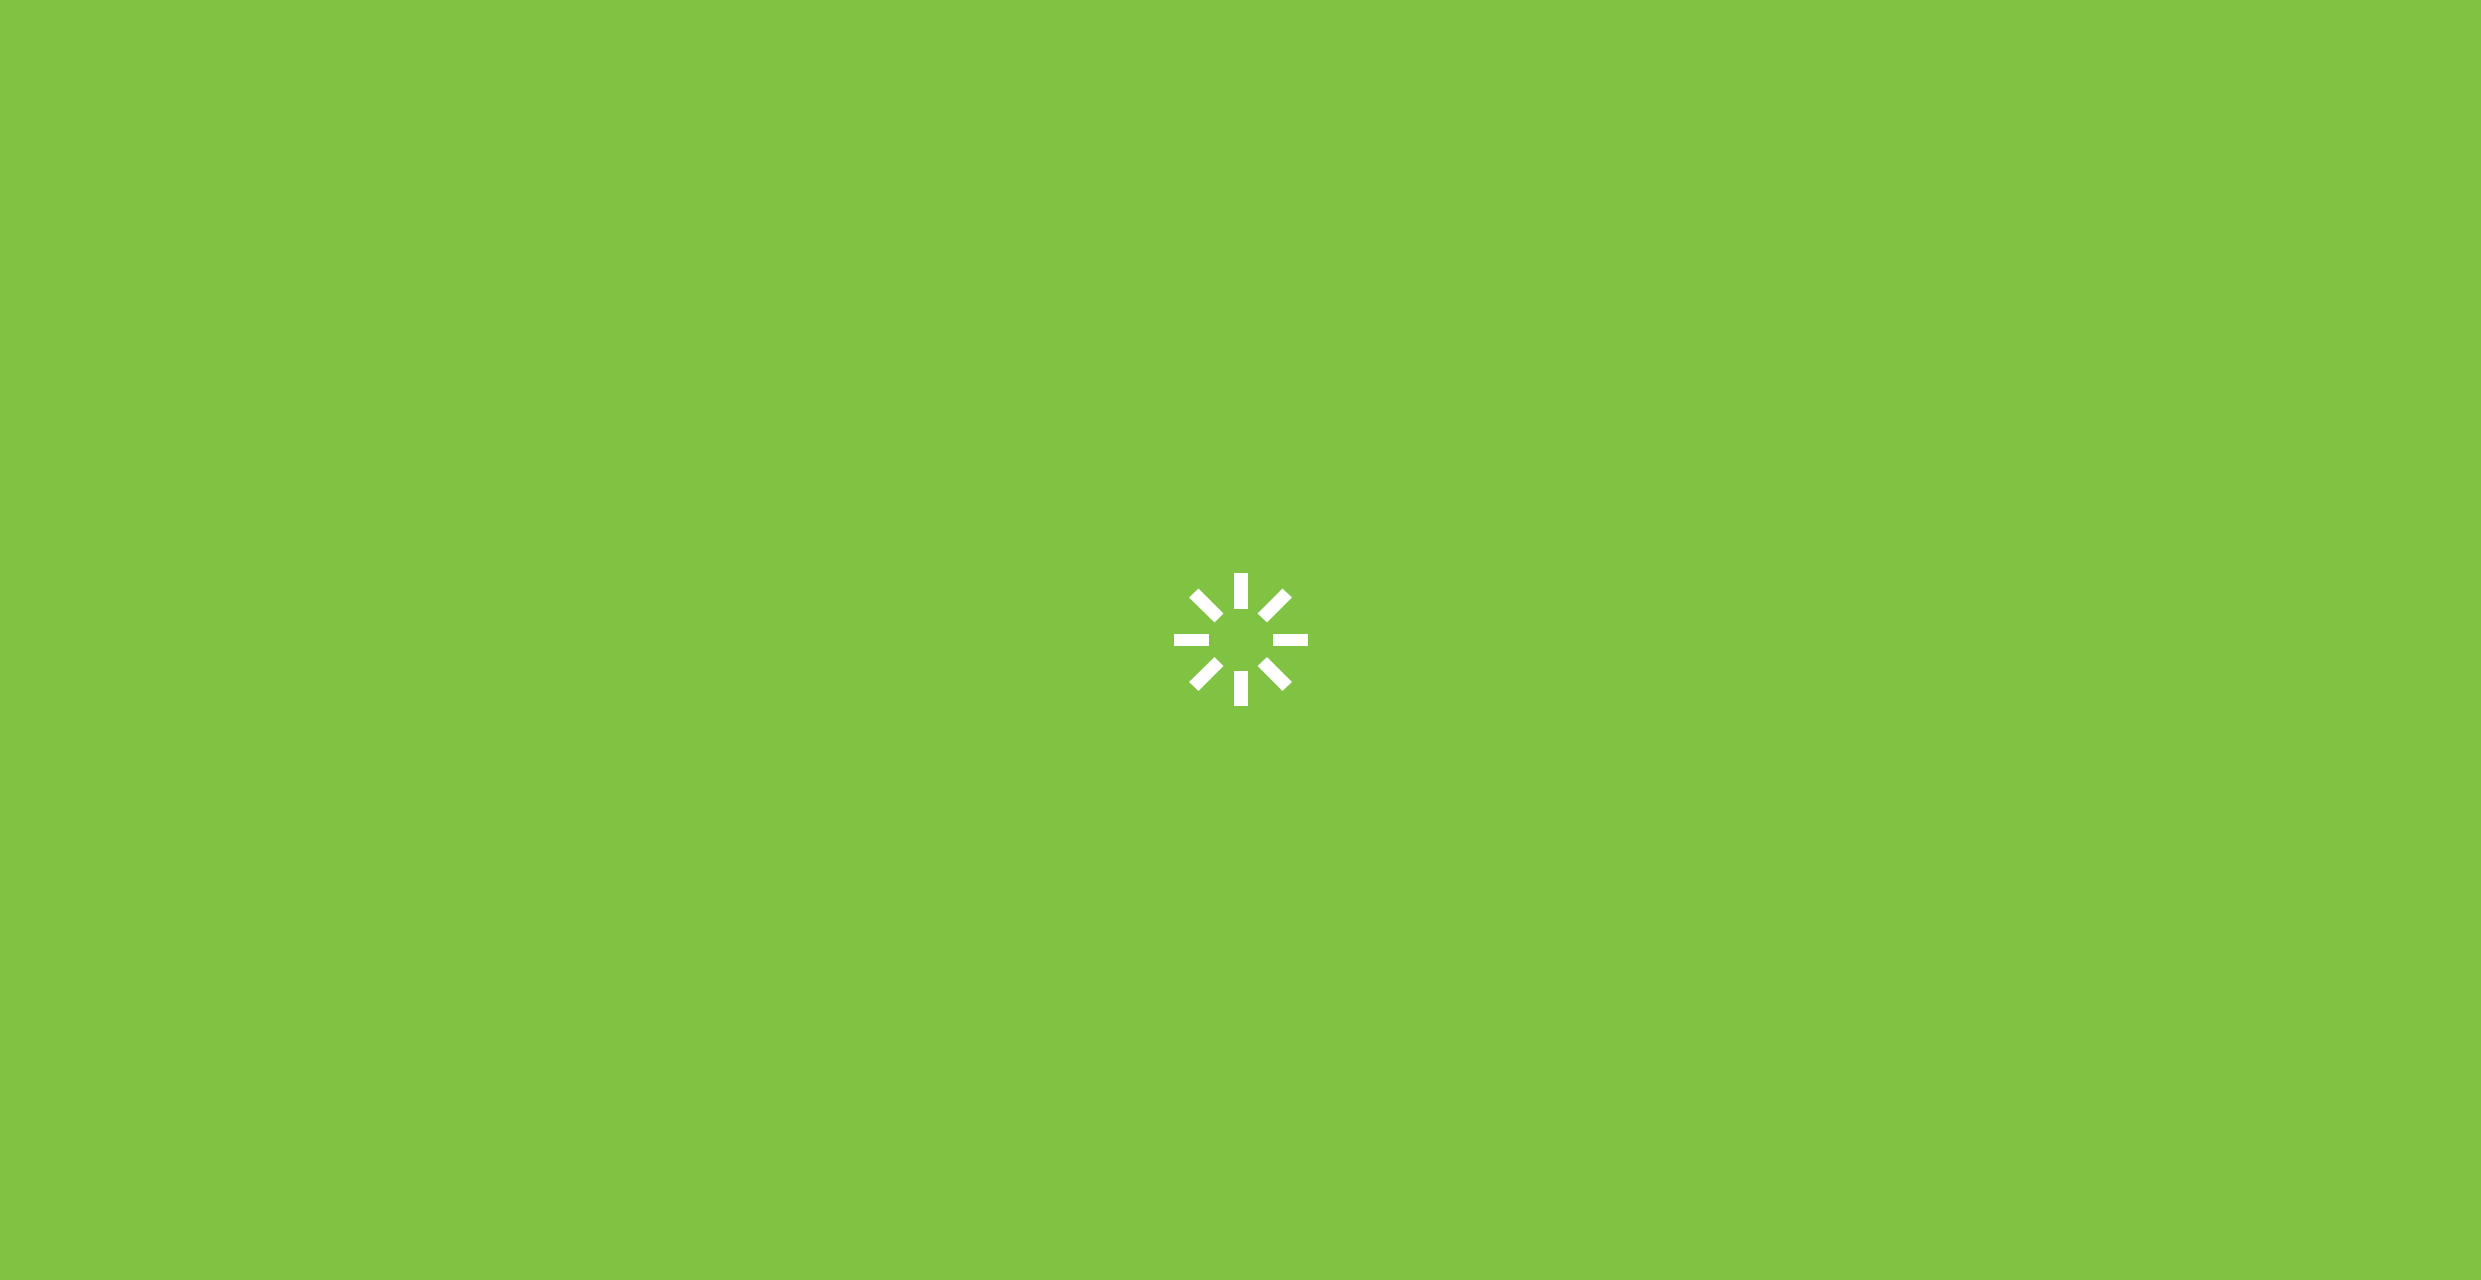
<!DOCTYPE html>
<meta charset="utf-8">
<style>body { margin: 0 } canvas { display: block }</style>
<canvas id="canvas" width="2481" height="1280"></canvas>
<script type="module">
  const canvas = document.getElementById("canvas");
  const ctx = canvas.getContext("2d");
  ctx.miterLimit = 4;
  ctx.fontKerning = "normal";

  ctx.fillStyle = "#80c342";
  ctx.fillRect(0, 0, 2481, 1280);
  ctx.fillStyle = "#ffffff";
  ctx.beginPath();
  ctx.moveTo(1189, 597.5);
  ctx.lineTo(1198.5, 588.5);
  ctx.lineTo(1223.5, 613.5);
  ctx.lineTo(1214.5, 622.5);
  ctx.closePath();
  ctx.fill();
  ctx.fillRect(1234, 573, 14, 36);
  ctx.beginPath();
  ctx.moveTo(1282.5, 588.5);
  ctx.lineTo(1292, 597.5);
  ctx.lineTo(1267, 622.5);
  ctx.lineTo(1257.5, 613.5);
  ctx.closePath();
  ctx.fill();
  ctx.fillRect(1174, 634, 35, 12);
  ctx.fillRect(1273, 634, 35, 12);
  ctx.beginPath();
  ctx.moveTo(1214.5, 657);
  ctx.lineTo(1223.5, 666);
  ctx.lineTo(1198.5, 691);
  ctx.lineTo(1189, 682);
  ctx.closePath();
  ctx.fill();
  ctx.fillRect(1234, 671, 14, 35);
  ctx.beginPath();
  ctx.moveTo(1257.5, 666);
  ctx.lineTo(1267, 657);
  ctx.lineTo(1292, 682);
  ctx.lineTo(1282.5, 691);
  ctx.closePath();
  ctx.fill();
</script>
